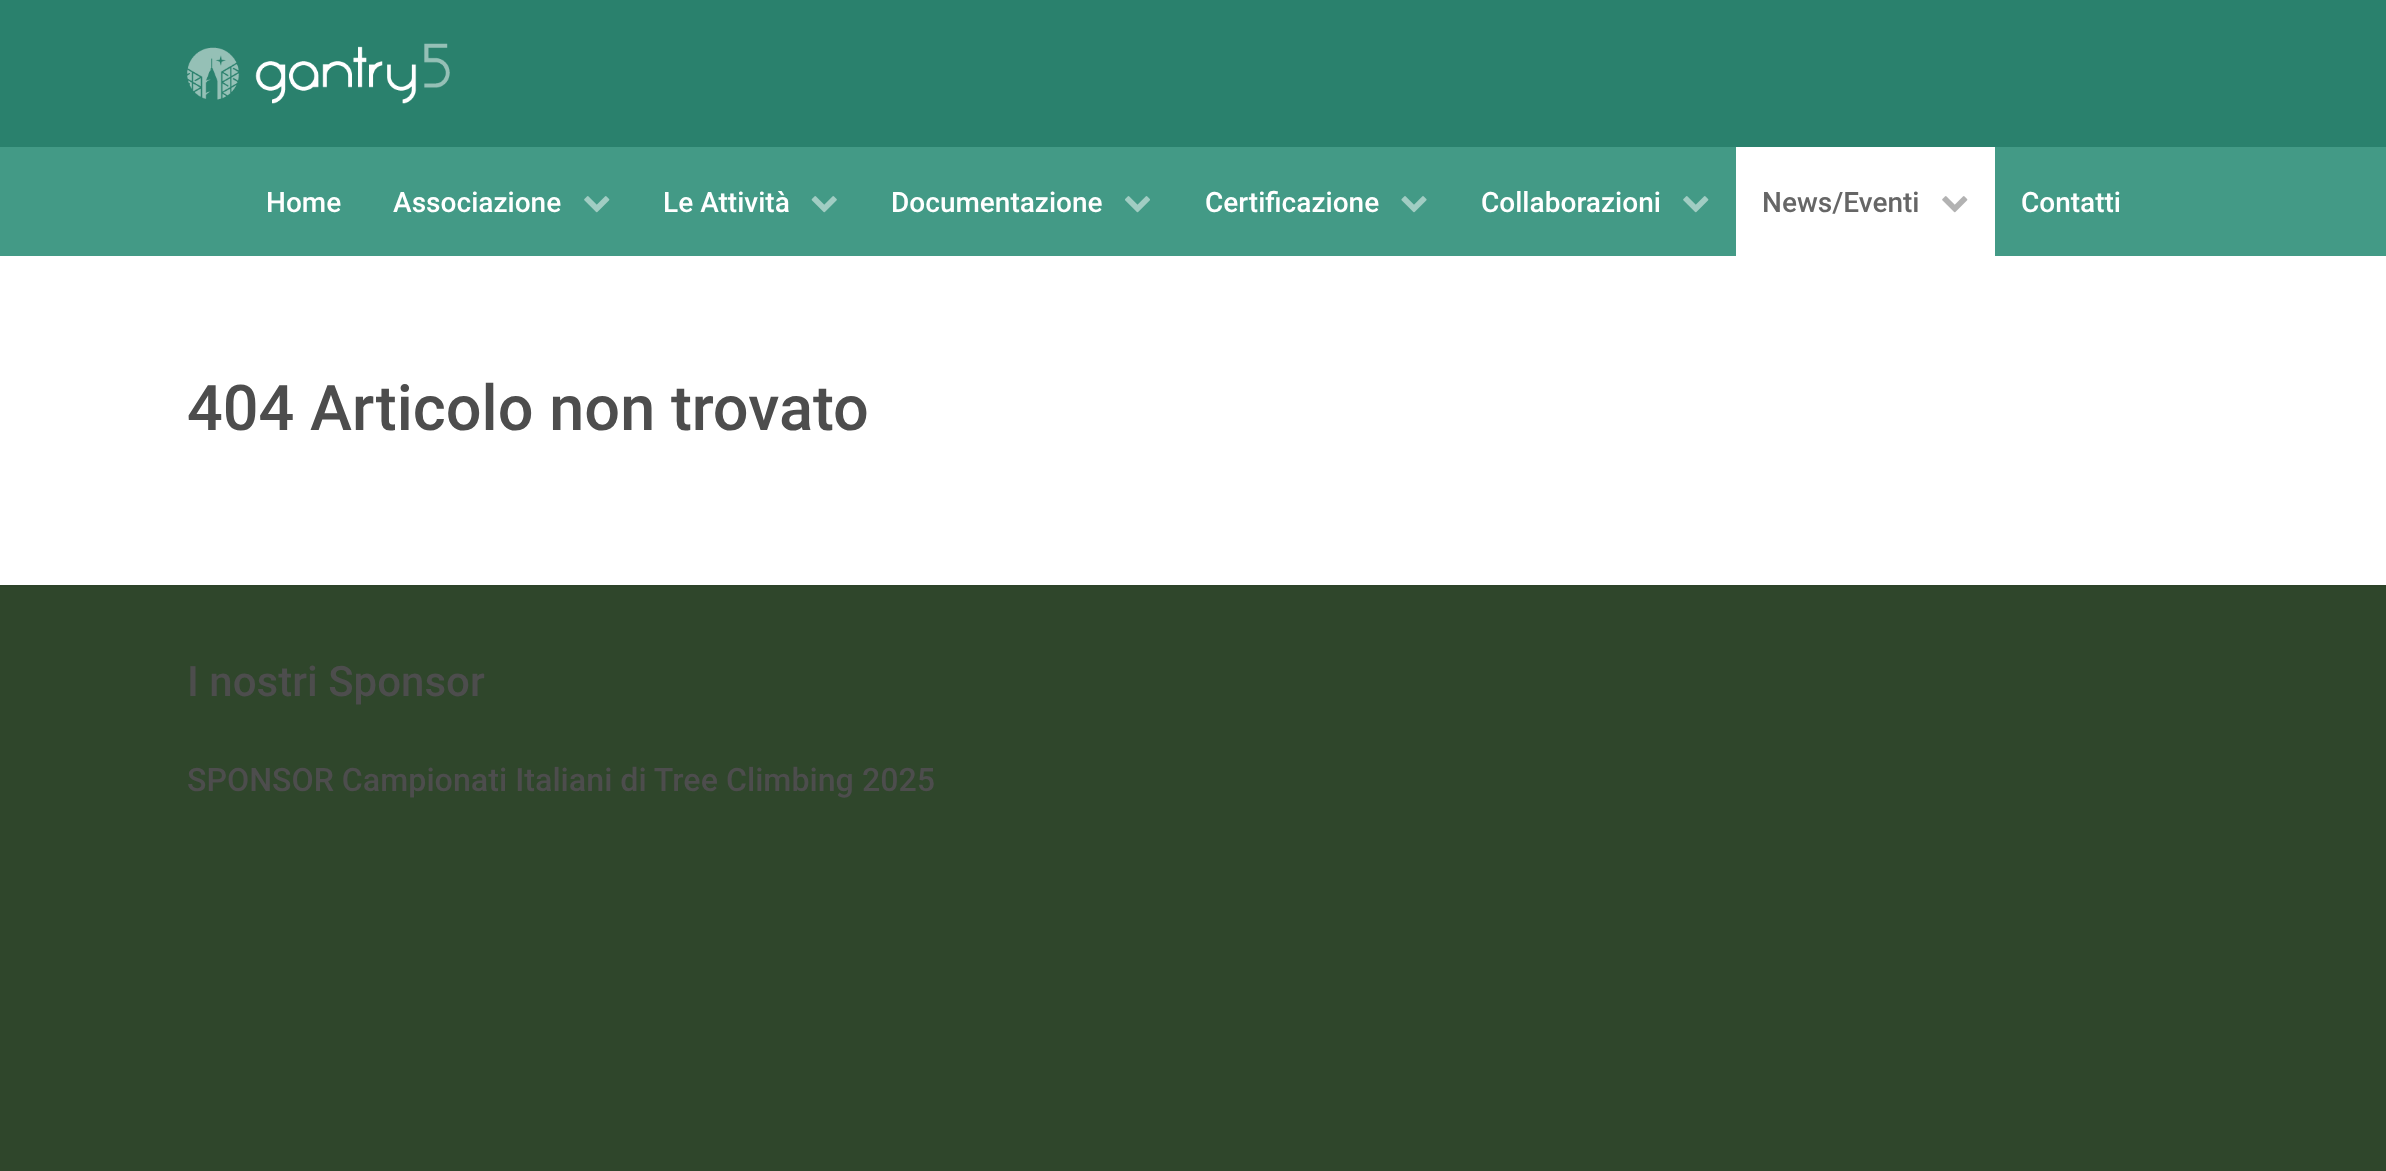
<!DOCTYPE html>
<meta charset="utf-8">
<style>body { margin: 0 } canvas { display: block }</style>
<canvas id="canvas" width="2386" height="1171"></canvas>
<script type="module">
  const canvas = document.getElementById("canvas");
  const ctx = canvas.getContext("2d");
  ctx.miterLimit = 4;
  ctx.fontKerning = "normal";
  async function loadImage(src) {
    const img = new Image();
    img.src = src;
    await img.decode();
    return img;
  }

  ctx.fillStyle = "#ffffff";
  ctx.fillRect(0, 0, 2386, 1171);
  ctx.fillStyle = "#2a816d";
  ctx.fillRect(0, 0, 2386, 147);
  ctx.drawImage(await loadImage("img1.png"), 187, 43, 263, 61);
  ctx.fillStyle = "#439a86";
  ctx.fillRect(0, 147, 2386, 109);
  ctx.font = "500 28px Roboto";
  ctx.fillStyle = "#ffffff";
  ctx.fillText("Home", 266, 212);
  ctx.fillText("Associazione", 393, 212);
  ctx.drawImage(await loadImage("img2.png"), 584, 196, 26, 17);
  ctx.fillText("Le Attività", 663, 212);
  ctx.drawImage(await loadImage("img3.png"), 811, 196, 26, 17);
  ctx.fillText("Documentazione", 891, 212);
  ctx.drawImage(await loadImage("img4.png"), 1125, 196, 25, 17);
  ctx.fillText("Certificazione", 1205, 212);
  ctx.drawImage(await loadImage("img5.png"), 1401, 196, 26, 17);
  ctx.fillText("Collaborazioni", 1481, 212);
  ctx.drawImage(await loadImage("img2.png"), 1683, 196, 26, 17);
  ctx.fillRect(1736, 147, 259, 109);
  ctx.fillStyle = "#666666";
  ctx.fillText("News/Eventi", 1762, 212);
  ctx.drawImage(await loadImage("img6.png"), 1942, 196, 26, 17);
  ctx.fillStyle = "#ffffff";
  ctx.fillText("Contatti", 2021, 212);
  ctx.font = "500 63px Roboto";
  ctx.fillStyle = "#4d4d4d";
  ctx.fillText("404 Articolo non trovato", 187, 430);
  ctx.fillStyle = "#2f462b";
  ctx.fillRect(0, 587, 2386, 584);
  ctx.fillStyle = "#2d4329";
  ctx.fillRect(0, 585, 2386, 2);
  ctx.font = "500 42px Roboto";
  ctx.fillStyle = "#4d4d4d";
  ctx.fillText("I nostri Sponsor", 187, 696);
  ctx.font = "500 32.2px Roboto";
  ctx.fillText("SPONSOR Campionati Italiani di Tree Climbing 2025", 187, 791);
</script>
